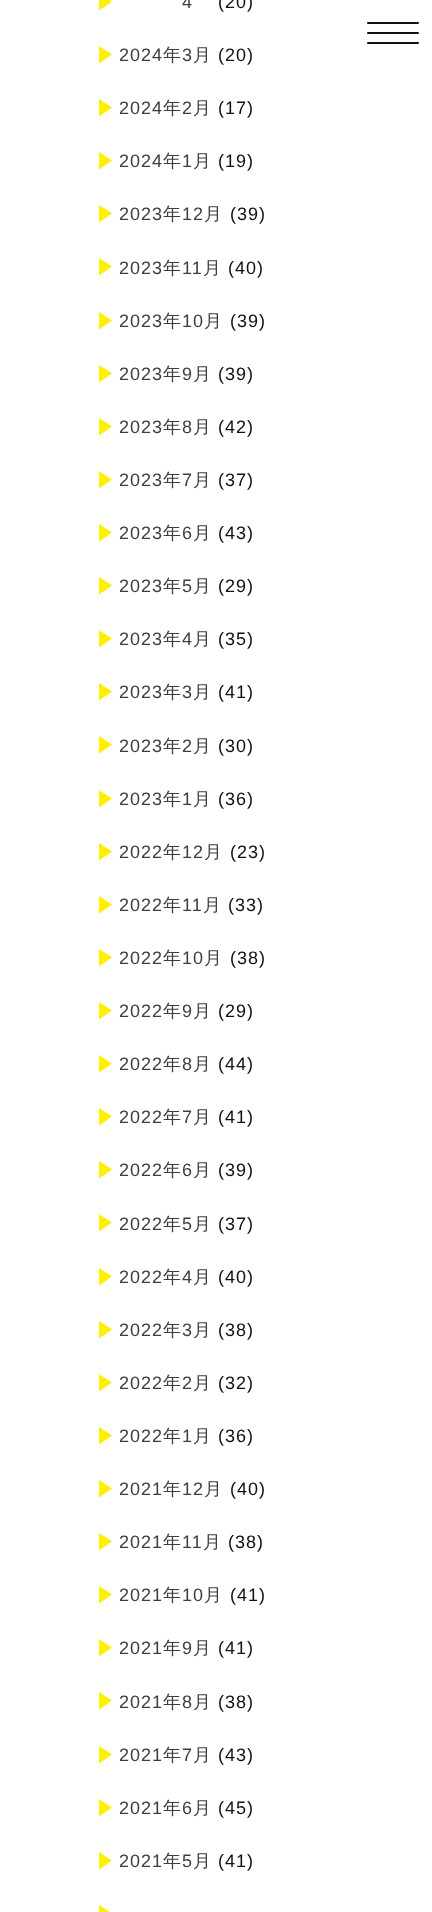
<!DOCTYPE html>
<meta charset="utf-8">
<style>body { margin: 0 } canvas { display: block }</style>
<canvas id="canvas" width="432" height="1912"></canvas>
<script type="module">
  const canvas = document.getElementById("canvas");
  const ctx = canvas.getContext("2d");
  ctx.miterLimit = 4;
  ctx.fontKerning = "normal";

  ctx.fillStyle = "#ffffff";
  ctx.fillRect(0, 0, 432, 1912);
  ctx.fillStyle = "#fff000";
  ctx.beginPath();
  ctx.moveTo(112, 1.5);
  ctx.lineTo(99, 10.5);
  ctx.lineTo(99, -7);
  ctx.closePath();
  ctx.moveTo(112, 54.5);
  ctx.lineTo(99, 63.5);
  ctx.lineTo(99, 46);
  ctx.closePath();
  ctx.fill();
  ctx.letterSpacing = "1px";
  ctx.font = "18px Liberation Sans";
  ctx.fillStyle = "#3e3e3e";
  ctx.fillText("4", 182, 8);
  ctx.fillStyle = "#111111";
  ctx.fillText("(20)", 218, 8);
  ctx.fillStyle = "#3e3e3e";
  ctx.fillText("2024", 119, 61);
  ctx.font = "500 18px WenQuanYi Zen Hei";
  ctx.fillText("年", 163, 61);
  ctx.font = "18px Liberation Sans";
  ctx.fillText("3", 182, 61);
  ctx.font = "500 18px WenQuanYi Zen Hei";
  ctx.fillText("月", 193, 61);
  ctx.font = "18px Liberation Sans";
  ctx.fillStyle = "#111111";
  ctx.fillText("(20)", 218, 61);
  ctx.fillStyle = "#fff000";
  ctx.beginPath();
  ctx.moveTo(112, 107.5);
  ctx.lineTo(99, 116.5);
  ctx.lineTo(99, 99);
  ctx.closePath();
  ctx.fill();
  ctx.fillStyle = "#3e3e3e";
  ctx.fillText("2024", 119, 114);
  ctx.font = "500 18px WenQuanYi Zen Hei";
  ctx.fillText("年", 163, 114);
  ctx.font = "18px Liberation Sans";
  ctx.fillText("2", 182, 114);
  ctx.font = "500 18px WenQuanYi Zen Hei";
  ctx.fillText("月", 193, 114);
  ctx.font = "18px Liberation Sans";
  ctx.fillStyle = "#111111";
  ctx.fillText("(17)", 218, 114);
  ctx.fillStyle = "#fff000";
  ctx.beginPath();
  ctx.moveTo(112, 160.5);
  ctx.lineTo(99, 169.5);
  ctx.lineTo(99, 152);
  ctx.closePath();
  ctx.fill();
  ctx.fillStyle = "#3e3e3e";
  ctx.fillText("2024", 119, 167);
  ctx.font = "500 18px WenQuanYi Zen Hei";
  ctx.fillText("年", 163, 167);
  ctx.font = "18px Liberation Sans";
  ctx.fillText("1", 182, 167);
  ctx.font = "500 18px WenQuanYi Zen Hei";
  ctx.fillText("月", 193, 167);
  ctx.font = "18px Liberation Sans";
  ctx.fillStyle = "#111111";
  ctx.fillText("(19)", 218, 167);
  ctx.fillStyle = "#fff000";
  ctx.beginPath();
  ctx.moveTo(112, 213.5);
  ctx.lineTo(99, 222.5);
  ctx.lineTo(99, 205);
  ctx.closePath();
  ctx.fill();
  ctx.fillStyle = "#3e3e3e";
  ctx.fillText("2023", 119, 220);
  ctx.font = "500 18px WenQuanYi Zen Hei";
  ctx.fillText("年", 163, 220);
  ctx.font = "18px Liberation Sans";
  ctx.fillText("12", 182, 220);
  ctx.font = "500 18px WenQuanYi Zen Hei";
  ctx.fillText("月", 204, 220);
  ctx.font = "18px Liberation Sans";
  ctx.fillStyle = "#111111";
  ctx.fillText("(39)", 230, 220);
  ctx.fillStyle = "#fff000";
  ctx.beginPath();
  ctx.moveTo(112, 266.5);
  ctx.lineTo(99, 275.5);
  ctx.lineTo(99, 258);
  ctx.closePath();
  ctx.fill();
  ctx.fillStyle = "#3e3e3e";
  ctx.fillText("2023", 119, 274);
  ctx.font = "500 18px WenQuanYi Zen Hei";
  ctx.fillText("年", 163, 274);
  ctx.font = "18px Liberation Sans";
  ctx.fillText("11", 182, 274);
  ctx.font = "500 18px WenQuanYi Zen Hei";
  ctx.fillText("月", 203, 274);
  ctx.font = "18px Liberation Sans";
  ctx.fillStyle = "#111111";
  ctx.fillText("(40)", 228, 274);
  ctx.fillStyle = "#fff000";
  ctx.beginPath();
  ctx.moveTo(112, 320.5);
  ctx.lineTo(99, 329.5);
  ctx.lineTo(99, 312);
  ctx.closePath();
  ctx.fill();
  ctx.fillStyle = "#3e3e3e";
  ctx.fillText("2023", 119, 327);
  ctx.font = "500 18px WenQuanYi Zen Hei";
  ctx.fillText("年", 163, 327);
  ctx.font = "18px Liberation Sans";
  ctx.fillText("10", 182, 327);
  ctx.font = "500 18px WenQuanYi Zen Hei";
  ctx.fillText("月", 204, 327);
  ctx.font = "18px Liberation Sans";
  ctx.fillStyle = "#111111";
  ctx.fillText("(39)", 230, 327);
  ctx.fillStyle = "#fff000";
  ctx.beginPath();
  ctx.moveTo(112, 373.5);
  ctx.lineTo(99, 382.5);
  ctx.lineTo(99, 365);
  ctx.closePath();
  ctx.fill();
  ctx.fillStyle = "#3e3e3e";
  ctx.fillText("2023", 119, 380);
  ctx.font = "500 18px WenQuanYi Zen Hei";
  ctx.fillText("年", 163, 380);
  ctx.font = "18px Liberation Sans";
  ctx.fillText("9", 182, 380);
  ctx.font = "500 18px WenQuanYi Zen Hei";
  ctx.fillText("月", 193, 380);
  ctx.font = "18px Liberation Sans";
  ctx.fillStyle = "#111111";
  ctx.fillText("(39)", 218, 380);
  ctx.fillStyle = "#fff000";
  ctx.beginPath();
  ctx.moveTo(112, 426.5);
  ctx.lineTo(99, 435.5);
  ctx.lineTo(99, 418);
  ctx.closePath();
  ctx.fill();
  ctx.fillStyle = "#3e3e3e";
  ctx.fillText("2023", 119, 433);
  ctx.font = "500 18px WenQuanYi Zen Hei";
  ctx.fillText("年", 163, 433);
  ctx.font = "18px Liberation Sans";
  ctx.fillText("8", 182, 433);
  ctx.font = "500 18px WenQuanYi Zen Hei";
  ctx.fillText("月", 193, 433);
  ctx.font = "18px Liberation Sans";
  ctx.fillStyle = "#111111";
  ctx.fillText("(42)", 218, 433);
  ctx.fillStyle = "#fff000";
  ctx.beginPath();
  ctx.moveTo(112, 479.5);
  ctx.lineTo(99, 488.5);
  ctx.lineTo(99, 471);
  ctx.closePath();
  ctx.fill();
  ctx.fillStyle = "#3e3e3e";
  ctx.fillText("2023", 119, 486);
  ctx.font = "500 18px WenQuanYi Zen Hei";
  ctx.fillText("年", 163, 486);
  ctx.font = "18px Liberation Sans";
  ctx.fillText("7", 182, 486);
  ctx.font = "500 18px WenQuanYi Zen Hei";
  ctx.fillText("月", 193, 486);
  ctx.font = "18px Liberation Sans";
  ctx.fillStyle = "#111111";
  ctx.fillText("(37)", 218, 486);
  ctx.fillStyle = "#fff000";
  ctx.beginPath();
  ctx.moveTo(112, 532.5);
  ctx.lineTo(99, 541.5);
  ctx.lineTo(99, 524);
  ctx.closePath();
  ctx.fill();
  ctx.fillStyle = "#3e3e3e";
  ctx.fillText("2023", 119, 539);
  ctx.font = "500 18px WenQuanYi Zen Hei";
  ctx.fillText("年", 163, 539);
  ctx.font = "18px Liberation Sans";
  ctx.fillText("6", 182, 539);
  ctx.font = "500 18px WenQuanYi Zen Hei";
  ctx.fillText("月", 193, 539);
  ctx.font = "18px Liberation Sans";
  ctx.fillStyle = "#111111";
  ctx.fillText("(43)", 218, 539);
  ctx.fillStyle = "#fff000";
  ctx.beginPath();
  ctx.moveTo(112, 585.5);
  ctx.lineTo(99, 594.5);
  ctx.lineTo(99, 577);
  ctx.closePath();
  ctx.fill();
  ctx.fillStyle = "#3e3e3e";
  ctx.fillText("2023", 119, 592);
  ctx.font = "500 18px WenQuanYi Zen Hei";
  ctx.fillText("年", 163, 592);
  ctx.font = "18px Liberation Sans";
  ctx.fillText("5", 182, 592);
  ctx.font = "500 18px WenQuanYi Zen Hei";
  ctx.fillText("月", 193, 592);
  ctx.font = "18px Liberation Sans";
  ctx.fillStyle = "#111111";
  ctx.fillText("(29)", 218, 592);
  ctx.fillStyle = "#fff000";
  ctx.beginPath();
  ctx.moveTo(112, 638.5);
  ctx.lineTo(99, 647.5);
  ctx.lineTo(99, 630);
  ctx.closePath();
  ctx.fill();
  ctx.fillStyle = "#3e3e3e";
  ctx.fillText("2023", 119, 645);
  ctx.font = "500 18px WenQuanYi Zen Hei";
  ctx.fillText("年", 163, 645);
  ctx.font = "18px Liberation Sans";
  ctx.fillText("4", 182, 645);
  ctx.font = "500 18px WenQuanYi Zen Hei";
  ctx.fillText("月", 193, 645);
  ctx.font = "18px Liberation Sans";
  ctx.fillStyle = "#111111";
  ctx.fillText("(35)", 218, 645);
  ctx.fillStyle = "#fff000";
  ctx.beginPath();
  ctx.moveTo(112, 691.5);
  ctx.lineTo(99, 700.5);
  ctx.lineTo(99, 683);
  ctx.closePath();
  ctx.fill();
  ctx.fillStyle = "#3e3e3e";
  ctx.fillText("2023", 119, 698);
  ctx.font = "500 18px WenQuanYi Zen Hei";
  ctx.fillText("年", 163, 698);
  ctx.font = "18px Liberation Sans";
  ctx.fillText("3", 182, 698);
  ctx.font = "500 18px WenQuanYi Zen Hei";
  ctx.fillText("月", 193, 698);
  ctx.font = "18px Liberation Sans";
  ctx.fillStyle = "#111111";
  ctx.fillText("(41)", 218, 698);
  ctx.fillStyle = "#fff000";
  ctx.beginPath();
  ctx.moveTo(112, 744.5);
  ctx.lineTo(99, 753.5);
  ctx.lineTo(99, 736);
  ctx.closePath();
  ctx.fill();
  ctx.fillStyle = "#3e3e3e";
  ctx.fillText("2023", 119, 752);
  ctx.font = "500 18px WenQuanYi Zen Hei";
  ctx.fillText("年", 163, 752);
  ctx.font = "18px Liberation Sans";
  ctx.fillText("2", 182, 752);
  ctx.font = "500 18px WenQuanYi Zen Hei";
  ctx.fillText("月", 193, 752);
  ctx.font = "18px Liberation Sans";
  ctx.fillStyle = "#111111";
  ctx.fillText("(30)", 218, 752);
  ctx.fillStyle = "#fff000";
  ctx.beginPath();
  ctx.moveTo(112, 798.5);
  ctx.lineTo(99, 807.5);
  ctx.lineTo(99, 790);
  ctx.closePath();
  ctx.fill();
  ctx.fillStyle = "#3e3e3e";
  ctx.fillText("2023", 119, 805);
  ctx.font = "500 18px WenQuanYi Zen Hei";
  ctx.fillText("年", 163, 805);
  ctx.font = "18px Liberation Sans";
  ctx.fillText("1", 182, 805);
  ctx.font = "500 18px WenQuanYi Zen Hei";
  ctx.fillText("月", 193, 805);
  ctx.font = "18px Liberation Sans";
  ctx.fillStyle = "#111111";
  ctx.fillText("(36)", 218, 805);
  ctx.fillStyle = "#fff000";
  ctx.beginPath();
  ctx.moveTo(112, 851.5);
  ctx.lineTo(99, 860.5);
  ctx.lineTo(99, 843);
  ctx.closePath();
  ctx.fill();
  ctx.fillStyle = "#3e3e3e";
  ctx.fillText("2022", 119, 858);
  ctx.font = "500 18px WenQuanYi Zen Hei";
  ctx.fillText("年", 163, 858);
  ctx.font = "18px Liberation Sans";
  ctx.fillText("12", 182, 858);
  ctx.font = "500 18px WenQuanYi Zen Hei";
  ctx.fillText("月", 204, 858);
  ctx.font = "18px Liberation Sans";
  ctx.fillStyle = "#111111";
  ctx.fillText("(23)", 230, 858);
  ctx.fillStyle = "#fff000";
  ctx.beginPath();
  ctx.moveTo(112, 904.5);
  ctx.lineTo(99, 913.5);
  ctx.lineTo(99, 896);
  ctx.closePath();
  ctx.fill();
  ctx.fillStyle = "#3e3e3e";
  ctx.fillText("2022", 119, 911);
  ctx.font = "500 18px WenQuanYi Zen Hei";
  ctx.fillText("年", 163, 911);
  ctx.font = "18px Liberation Sans";
  ctx.fillText("11", 182, 911);
  ctx.font = "500 18px WenQuanYi Zen Hei";
  ctx.fillText("月", 203, 911);
  ctx.font = "18px Liberation Sans";
  ctx.fillStyle = "#111111";
  ctx.fillText("(33)", 228, 911);
  ctx.fillStyle = "#fff000";
  ctx.beginPath();
  ctx.moveTo(112, 957.5);
  ctx.lineTo(99, 966.5);
  ctx.lineTo(99, 949);
  ctx.closePath();
  ctx.fill();
  ctx.fillStyle = "#3e3e3e";
  ctx.fillText("2022", 119, 964);
  ctx.font = "500 18px WenQuanYi Zen Hei";
  ctx.fillText("年", 163, 964);
  ctx.font = "18px Liberation Sans";
  ctx.fillText("10", 182, 964);
  ctx.font = "500 18px WenQuanYi Zen Hei";
  ctx.fillText("月", 204, 964);
  ctx.font = "18px Liberation Sans";
  ctx.fillStyle = "#111111";
  ctx.fillText("(38)", 230, 964);
  ctx.fillStyle = "#fff000";
  ctx.beginPath();
  ctx.moveTo(112, 1010.5);
  ctx.lineTo(99, 1019.5);
  ctx.lineTo(99, 1002);
  ctx.closePath();
  ctx.fill();
  ctx.fillStyle = "#3e3e3e";
  ctx.fillText("2022", 119, 1017);
  ctx.font = "500 18px WenQuanYi Zen Hei";
  ctx.fillText("年", 163, 1017);
  ctx.font = "18px Liberation Sans";
  ctx.fillText("9", 182, 1017);
  ctx.font = "500 18px WenQuanYi Zen Hei";
  ctx.fillText("月", 193, 1017);
  ctx.font = "18px Liberation Sans";
  ctx.fillStyle = "#111111";
  ctx.fillText("(29)", 218, 1017);
  ctx.fillStyle = "#fff000";
  ctx.beginPath();
  ctx.moveTo(112, 1063.5);
  ctx.lineTo(99, 1072.5);
  ctx.lineTo(99, 1055);
  ctx.closePath();
  ctx.fill();
  ctx.fillStyle = "#3e3e3e";
  ctx.fillText("2022", 119, 1070);
  ctx.font = "500 18px WenQuanYi Zen Hei";
  ctx.fillText("年", 163, 1070);
  ctx.font = "18px Liberation Sans";
  ctx.fillText("8", 182, 1070);
  ctx.font = "500 18px WenQuanYi Zen Hei";
  ctx.fillText("月", 193, 1070);
  ctx.font = "18px Liberation Sans";
  ctx.fillStyle = "#111111";
  ctx.fillText("(44)", 218, 1070);
  ctx.fillStyle = "#fff000";
  ctx.beginPath();
  ctx.moveTo(112, 1116.5);
  ctx.lineTo(99, 1125.5);
  ctx.lineTo(99, 1108);
  ctx.closePath();
  ctx.fill();
  ctx.fillStyle = "#3e3e3e";
  ctx.fillText("2022", 119, 1123);
  ctx.font = "500 18px WenQuanYi Zen Hei";
  ctx.fillText("年", 163, 1123);
  ctx.font = "18px Liberation Sans";
  ctx.fillText("7", 182, 1123);
  ctx.font = "500 18px WenQuanYi Zen Hei";
  ctx.fillText("月", 193, 1123);
  ctx.font = "18px Liberation Sans";
  ctx.fillStyle = "#111111";
  ctx.fillText("(41)", 218, 1123);
  ctx.fillStyle = "#fff000";
  ctx.beginPath();
  ctx.moveTo(112, 1169.5);
  ctx.lineTo(99, 1178.5);
  ctx.lineTo(99, 1161);
  ctx.closePath();
  ctx.fill();
  ctx.fillStyle = "#3e3e3e";
  ctx.fillText("2022", 119, 1176);
  ctx.font = "500 18px WenQuanYi Zen Hei";
  ctx.fillText("年", 163, 1176);
  ctx.font = "18px Liberation Sans";
  ctx.fillText("6", 182, 1176);
  ctx.font = "500 18px WenQuanYi Zen Hei";
  ctx.fillText("月", 193, 1176);
  ctx.font = "18px Liberation Sans";
  ctx.fillStyle = "#111111";
  ctx.fillText("(39)", 218, 1176);
  ctx.fillStyle = "#fff000";
  ctx.beginPath();
  ctx.moveTo(112, 1222.5);
  ctx.lineTo(99, 1231.5);
  ctx.lineTo(99, 1214);
  ctx.closePath();
  ctx.fill();
  ctx.fillStyle = "#3e3e3e";
  ctx.fillText("2022", 119, 1230);
  ctx.font = "500 18px WenQuanYi Zen Hei";
  ctx.fillText("年", 163, 1230);
  ctx.font = "18px Liberation Sans";
  ctx.fillText("5", 182, 1230);
  ctx.font = "500 18px WenQuanYi Zen Hei";
  ctx.fillText("月", 193, 1230);
  ctx.font = "18px Liberation Sans";
  ctx.fillStyle = "#111111";
  ctx.fillText("(37)", 218, 1230);
  ctx.fillStyle = "#fff000";
  ctx.beginPath();
  ctx.moveTo(112, 1276.5);
  ctx.lineTo(99, 1285.5);
  ctx.lineTo(99, 1268);
  ctx.closePath();
  ctx.fill();
  ctx.fillStyle = "#3e3e3e";
  ctx.fillText("2022", 119, 1283);
  ctx.font = "500 18px WenQuanYi Zen Hei";
  ctx.fillText("年", 163, 1283);
  ctx.font = "18px Liberation Sans";
  ctx.fillText("4", 182, 1283);
  ctx.font = "500 18px WenQuanYi Zen Hei";
  ctx.fillText("月", 193, 1283);
  ctx.font = "18px Liberation Sans";
  ctx.fillStyle = "#111111";
  ctx.fillText("(40)", 218, 1283);
  ctx.fillStyle = "#fff000";
  ctx.beginPath();
  ctx.moveTo(112, 1329.5);
  ctx.lineTo(99, 1338.5);
  ctx.lineTo(99, 1321);
  ctx.closePath();
  ctx.fill();
  ctx.fillStyle = "#3e3e3e";
  ctx.fillText("2022", 119, 1336);
  ctx.font = "500 18px WenQuanYi Zen Hei";
  ctx.fillText("年", 163, 1336);
  ctx.font = "18px Liberation Sans";
  ctx.fillText("3", 182, 1336);
  ctx.font = "500 18px WenQuanYi Zen Hei";
  ctx.fillText("月", 193, 1336);
  ctx.font = "18px Liberation Sans";
  ctx.fillStyle = "#111111";
  ctx.fillText("(38)", 218, 1336);
  ctx.fillStyle = "#fff000";
  ctx.beginPath();
  ctx.moveTo(112, 1382.5);
  ctx.lineTo(99, 1391.5);
  ctx.lineTo(99, 1374);
  ctx.closePath();
  ctx.fill();
  ctx.fillStyle = "#3e3e3e";
  ctx.fillText("2022", 119, 1389);
  ctx.font = "500 18px WenQuanYi Zen Hei";
  ctx.fillText("年", 163, 1389);
  ctx.font = "18px Liberation Sans";
  ctx.fillText("2", 182, 1389);
  ctx.font = "500 18px WenQuanYi Zen Hei";
  ctx.fillText("月", 193, 1389);
  ctx.font = "18px Liberation Sans";
  ctx.fillStyle = "#111111";
  ctx.fillText("(32)", 218, 1389);
  ctx.fillStyle = "#fff000";
  ctx.beginPath();
  ctx.moveTo(112, 1435.5);
  ctx.lineTo(99, 1444.5);
  ctx.lineTo(99, 1427);
  ctx.closePath();
  ctx.fill();
  ctx.fillStyle = "#3e3e3e";
  ctx.fillText("2022", 119, 1442);
  ctx.font = "500 18px WenQuanYi Zen Hei";
  ctx.fillText("年", 163, 1442);
  ctx.font = "18px Liberation Sans";
  ctx.fillText("1", 182, 1442);
  ctx.font = "500 18px WenQuanYi Zen Hei";
  ctx.fillText("月", 193, 1442);
  ctx.font = "18px Liberation Sans";
  ctx.fillStyle = "#111111";
  ctx.fillText("(36)", 218, 1442);
  ctx.fillStyle = "#fff000";
  ctx.beginPath();
  ctx.moveTo(112, 1488.5);
  ctx.lineTo(99, 1497.5);
  ctx.lineTo(99, 1480);
  ctx.closePath();
  ctx.fill();
  ctx.fillStyle = "#3e3e3e";
  ctx.fillText("2021", 119, 1495);
  ctx.font = "500 18px WenQuanYi Zen Hei";
  ctx.fillText("年", 163, 1495);
  ctx.font = "18px Liberation Sans";
  ctx.fillText("12", 182, 1495);
  ctx.font = "500 18px WenQuanYi Zen Hei";
  ctx.fillText("月", 204, 1495);
  ctx.font = "18px Liberation Sans";
  ctx.fillStyle = "#111111";
  ctx.fillText("(40)", 230, 1495);
  ctx.fillStyle = "#fff000";
  ctx.beginPath();
  ctx.moveTo(112, 1541.5);
  ctx.lineTo(99, 1550.5);
  ctx.lineTo(99, 1533);
  ctx.closePath();
  ctx.fill();
  ctx.fillStyle = "#3e3e3e";
  ctx.fillText("2021", 119, 1548);
  ctx.font = "500 18px WenQuanYi Zen Hei";
  ctx.fillText("年", 163, 1548);
  ctx.font = "18px Liberation Sans";
  ctx.fillText("11", 182, 1548);
  ctx.font = "500 18px WenQuanYi Zen Hei";
  ctx.fillText("月", 203, 1548);
  ctx.font = "18px Liberation Sans";
  ctx.fillStyle = "#111111";
  ctx.fillText("(38)", 228, 1548);
  ctx.fillStyle = "#fff000";
  ctx.beginPath();
  ctx.moveTo(112, 1594.5);
  ctx.lineTo(99, 1603.5);
  ctx.lineTo(99, 1586);
  ctx.closePath();
  ctx.fill();
  ctx.fillStyle = "#3e3e3e";
  ctx.fillText("2021", 119, 1601);
  ctx.font = "500 18px WenQuanYi Zen Hei";
  ctx.fillText("年", 163, 1601);
  ctx.font = "18px Liberation Sans";
  ctx.fillText("10", 182, 1601);
  ctx.font = "500 18px WenQuanYi Zen Hei";
  ctx.fillText("月", 204, 1601);
  ctx.font = "18px Liberation Sans";
  ctx.fillStyle = "#111111";
  ctx.fillText("(41)", 230, 1601);
  ctx.fillStyle = "#fff000";
  ctx.beginPath();
  ctx.moveTo(112, 1647.5);
  ctx.lineTo(99, 1656.5);
  ctx.lineTo(99, 1639);
  ctx.closePath();
  ctx.fill();
  ctx.fillStyle = "#3e3e3e";
  ctx.fillText("2021", 119, 1654);
  ctx.font = "500 18px WenQuanYi Zen Hei";
  ctx.fillText("年", 163, 1654);
  ctx.font = "18px Liberation Sans";
  ctx.fillText("9", 182, 1654);
  ctx.font = "500 18px WenQuanYi Zen Hei";
  ctx.fillText("月", 193, 1654);
  ctx.font = "18px Liberation Sans";
  ctx.fillStyle = "#111111";
  ctx.fillText("(41)", 218, 1654);
  ctx.fillStyle = "#fff000";
  ctx.beginPath();
  ctx.moveTo(112, 1700.5);
  ctx.lineTo(99, 1709.5);
  ctx.lineTo(99, 1692);
  ctx.closePath();
  ctx.fill();
  ctx.fillStyle = "#3e3e3e";
  ctx.fillText("2021", 119, 1708);
  ctx.font = "500 18px WenQuanYi Zen Hei";
  ctx.fillText("年", 163, 1708);
  ctx.font = "18px Liberation Sans";
  ctx.fillText("8", 182, 1708);
  ctx.font = "500 18px WenQuanYi Zen Hei";
  ctx.fillText("月", 193, 1708);
  ctx.font = "18px Liberation Sans";
  ctx.fillStyle = "#111111";
  ctx.fillText("(38)", 218, 1708);
  ctx.fillStyle = "#fff000";
  ctx.beginPath();
  ctx.moveTo(112, 1754.5);
  ctx.lineTo(99, 1763.5);
  ctx.lineTo(99, 1746);
  ctx.closePath();
  ctx.fill();
  ctx.fillStyle = "#3e3e3e";
  ctx.fillText("2021", 119, 1761);
  ctx.font = "500 18px WenQuanYi Zen Hei";
  ctx.fillText("年", 163, 1761);
  ctx.font = "18px Liberation Sans";
  ctx.fillText("7", 182, 1761);
  ctx.font = "500 18px WenQuanYi Zen Hei";
  ctx.fillText("月", 193, 1761);
  ctx.font = "18px Liberation Sans";
  ctx.fillStyle = "#111111";
  ctx.fillText("(43)", 218, 1761);
  ctx.fillStyle = "#fff000";
  ctx.beginPath();
  ctx.moveTo(112, 1807.5);
  ctx.lineTo(99, 1816.5);
  ctx.lineTo(99, 1799);
  ctx.closePath();
  ctx.fill();
  ctx.fillStyle = "#3e3e3e";
  ctx.fillText("2021", 119, 1814);
  ctx.font = "500 18px WenQuanYi Zen Hei";
  ctx.fillText("年", 163, 1814);
  ctx.font = "18px Liberation Sans";
  ctx.fillText("6", 182, 1814);
  ctx.font = "500 18px WenQuanYi Zen Hei";
  ctx.fillText("月", 193, 1814);
  ctx.font = "18px Liberation Sans";
  ctx.fillStyle = "#111111";
  ctx.fillText("(45)", 218, 1814);
  ctx.fillStyle = "#fff000";
  ctx.beginPath();
  ctx.moveTo(112, 1860.5);
  ctx.lineTo(99, 1869.5);
  ctx.lineTo(99, 1852);
  ctx.closePath();
  ctx.moveTo(112, 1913.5);
  ctx.lineTo(99, 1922.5);
  ctx.lineTo(99, 1905);
  ctx.closePath();
  ctx.fill();
  ctx.fillStyle = "#3e3e3e";
  ctx.fillText("2021", 119, 1867);
  ctx.font = "500 18px WenQuanYi Zen Hei";
  ctx.fillText("年", 163, 1867);
  ctx.font = "18px Liberation Sans";
  ctx.fillText("5", 182, 1867);
  ctx.font = "500 18px WenQuanYi Zen Hei";
  ctx.fillText("月", 193, 1867);
  ctx.font = "18px Liberation Sans";
  ctx.fillStyle = "#111111";
  ctx.fillText("(41)", 218, 1867);
  ctx.beginPath();
  ctx.moveTo(368, 23);
  ctx.lineTo(418, 23);
  ctx.moveTo(368, 33);
  ctx.lineTo(418, 33);
  ctx.moveTo(368, 43);
  ctx.lineTo(418, 43);
  ctx.strokeStyle = "#111111";
  ctx.lineWidth = 2;
  ctx.lineCap = "round";
  ctx.stroke();
</script>
